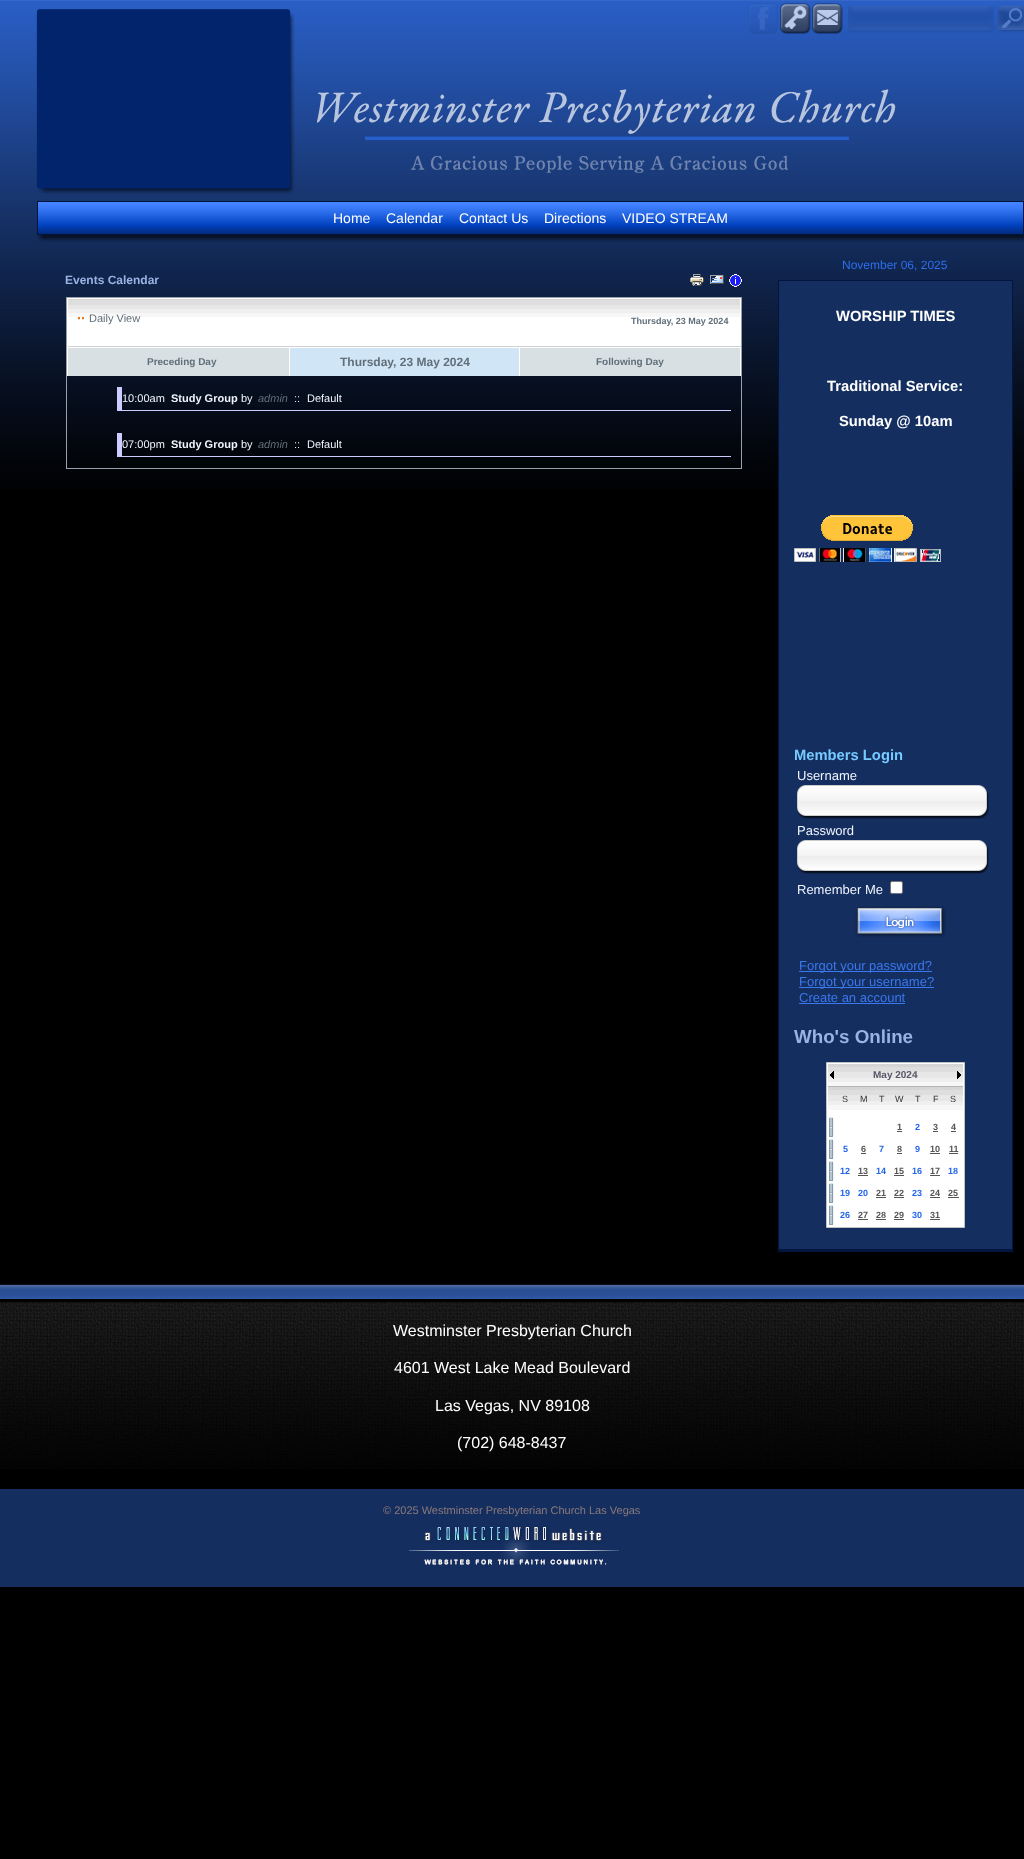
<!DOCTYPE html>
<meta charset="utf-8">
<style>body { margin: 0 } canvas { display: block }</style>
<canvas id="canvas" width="1024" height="1859"></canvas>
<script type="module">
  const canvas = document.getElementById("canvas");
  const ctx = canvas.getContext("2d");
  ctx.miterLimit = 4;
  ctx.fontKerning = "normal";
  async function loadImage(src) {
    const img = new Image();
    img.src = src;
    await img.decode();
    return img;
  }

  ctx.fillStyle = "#000000";
  ctx.fillRect(0, 0, 1024, 1859);
  ctx.drawImage(await loadImage("img1.png"), 0, 490, 1024, 748);
  ctx.drawImage(await loadImage("img2.png"), 0, 0, 1024, 490);
  ctx.font = "14px Liberation Sans";
  ctx.fillStyle = "#ffffff";
  ctx.fillText("Home", 333, 223);
  ctx.fillText("Calendar", 386, 223);
  ctx.fillText("Contact Us", 459, 223);
  ctx.fillText("Directions", 544, 223);
  ctx.fillText("VIDEO STREAM", 622, 223);
  ctx.drawImage(await loadImage("img3.png"), 36, 9, 259, 185);
  ctx.drawImage(await loadImage("img4.png"), 748, 3, 30, 31);
  ctx.drawImage(await loadImage("img5.png"), 780, 3, 31, 31);
  ctx.drawImage(await loadImage("img6.png"), 812, 3, 31, 31);
  ctx.drawImage(await loadImage("img7.png"), 848, 6, 176, 27);
  ctx.drawImage(await loadImage("img8.png"), 997, 6, 27, 25);
  ctx.drawImage(await loadImage("img9.png"), 317, 89, 579, 51);
  ctx.drawImage(await loadImage("img10.png"), 411, 155, 377, 18);
  ctx.font = "12px Liberation Sans";
  ctx.fillStyle = "#2e6fed";
  ctx.fillText("November 06, 2025", 842, 269);
  ctx.font = "bold 12px Liberation Sans";
  ctx.fillStyle = "#9ab3e4";
  ctx.fillText("Events Calendar", 65, 284);
  ctx.drawImage(await loadImage("img11.png"), 690, 274, 14, 12);
  ctx.drawImage(await loadImage("img12.png"), 710, 275, 14, 9);
  ctx.drawImage(await loadImage("img13.png"), 729, 274, 13, 13);
  ctx.strokeStyle = "#99a0aa";
  ctx.strokeRect(66.5, 297.5, 675, 171);
  ctx.drawImage(await loadImage("img14.png"), 68, 298, 672, 48);
  ctx.fillStyle = "#ffffff";
  ctx.fillRect(740, 298, 1, 49);
  ctx.fillStyle = "#ced2d6";
  ctx.fillRect(67, 346, 674, 1);
  ctx.fillStyle = "#ffffff";
  ctx.fillRect(67, 298, 1, 49);
  ctx.drawImage(await loadImage("img15.png"), 78, 317, 6, 3);
  ctx.font = "11px Liberation Sans";
  ctx.fillStyle = "#606f79";
  ctx.fillText("Daily View", 89, 322);
  ctx.font = "bold 9px Liberation Sans";
  ctx.fillText("Thursday, 23 May 2024", 631, 324);
  ctx.fillStyle = "#d8e0e4";
  ctx.fillRect(68, 348, 221, 28);
  ctx.fillStyle = "#ffffff";
  ctx.fillRect(67, 347, 674, 1);
  ctx.fillRect(67, 347, 1, 29);
  ctx.font = "bold 10px Liberation Sans";
  ctx.fillStyle = "#606f79";
  ctx.fillText("Preceding Day", 147, 365);
  ctx.fillStyle = "#d0e6f6";
  ctx.fillRect(290, 348, 229, 28);
  ctx.fillStyle = "#ffffff";
  ctx.fillRect(289, 347, 1, 29);
  ctx.font = "bold 12px Liberation Sans";
  ctx.fillStyle = "#606f79";
  ctx.fillText("Thursday, 23 May 2024", 340, 366);
  ctx.fillStyle = "#d8e0e4";
  ctx.fillRect(520, 348, 220, 28);
  ctx.fillStyle = "#ffffff";
  ctx.fillRect(740, 347, 1, 29);
  ctx.fillRect(519, 347, 1, 29);
  ctx.font = "bold 10px Liberation Sans";
  ctx.fillStyle = "#606f79";
  ctx.fillText("Following Day", 596, 365);
  ctx.fillStyle = "#ccccff";
  ctx.fillRect(117, 410, 614, 1);
  ctx.fillRect(117, 387, 5, 24);
  ctx.font = "11px Liberation Sans";
  ctx.fillStyle = "#eff4fe";
  ctx.fillText("10:00am", 122, 402);
  ctx.font = "bold 11px Liberation Sans";
  ctx.fillText("Study Group", 171, 402);
  ctx.font = "11px Liberation Sans";
  ctx.fillText("by", 241, 402);
  ctx.font = "italic 11px Liberation Sans";
  ctx.fillStyle = "#606f79";
  ctx.fillText("admin", 258, 402);
  ctx.font = "11px Liberation Sans";
  ctx.fillStyle = "#eff4fe";
  ctx.fillText("::", 294, 402);
  ctx.fillText("Default", 307, 402);
  ctx.fillStyle = "#ccccff";
  ctx.fillRect(117, 456, 614, 1);
  ctx.fillRect(117, 433, 5, 24);
  ctx.fillStyle = "#eff4fe";
  ctx.fillText("07:00pm", 122, 448);
  ctx.font = "bold 11px Liberation Sans";
  ctx.fillText("Study Group", 171, 448);
  ctx.font = "11px Liberation Sans";
  ctx.fillText("by", 241, 448);
  ctx.font = "italic 11px Liberation Sans";
  ctx.fillStyle = "#606f79";
  ctx.fillText("admin", 258, 448);
  ctx.font = "11px Liberation Sans";
  ctx.fillStyle = "#eff4fe";
  ctx.fillText("::", 294, 448);
  ctx.fillText("Default", 307, 448);
  ctx.font = "bold 14.75px Liberation Sans";
  ctx.fillStyle = "#ffffff";
  ctx.fillText("WORSHIP TIMES", 836, 321);
  ctx.fillText("Traditional Service:", 827, 391);
  ctx.fillText("Sunday @ 10am", 839, 426);
  ctx.drawImage(await loadImage("img16.png"), 794, 515, 147, 47);
  ctx.fillStyle = "#76caff";
  ctx.fillText("Members Login", 794, 760);
  ctx.font = "13px Liberation Sans";
  ctx.fillStyle = "#eff4fe";
  ctx.fillText("Username", 797, 780);
  ctx.drawImage(await loadImage("img17.png"), 797, 785, 192, 34);
  ctx.fillText("Password", 797, 835);
  ctx.drawImage(await loadImage("img17.png"), 797, 840, 192, 34);
  ctx.fillText("Remember Me", 797, 894);
  ctx.fillStyle = "#ffffff";
  ctx.beginPath();
  ctx.roundRect(890.5, 881.5, 12, 12, 1.5);
  ctx.fill();
  ctx.strokeStyle = "#767676";
  ctx.stroke();
  ctx.drawImage(await loadImage("img18.png"), 855, 906, 91, 32);
  ctx.fillStyle = "#3b78ed";
  ctx.fillRect(799, 971, 133, 1);
  ctx.fillText("Forgot your password?", 799, 970);
  ctx.fillRect(799, 987, 135, 1);
  ctx.fillText("Forgot your username?", 799, 986);
  ctx.fillText("Create an account", 799, 1002);
  ctx.fillRect(799, 1003, 106, 1);
  ctx.font = "bold 18.75px Liberation Sans";
  ctx.fillStyle = "#9ab3e4";
  ctx.fillText("Who's Online", 794, 1043);
  ctx.fillStyle = "#ffffff";
  ctx.beginPath();
  ctx.rect(826.5, 1062.5, 138, 165);
  ctx.fill();
  ctx.strokeStyle = "#bec2c3";
  ctx.stroke();
  ctx.drawImage(await loadImage("img19.png"), 828, 1064, 135, 22);
  ctx.fillStyle = "#b4b4b6";
  ctx.fillRect(828, 1086, 135, 1);
  ctx.drawImage(await loadImage("img20.png"), 830, 1071, 4, 8);
  ctx.font = "bold 10px Liberation Sans";
  ctx.fillStyle = "#565666";
  ctx.fillText("May 2024", 873, 1078);
  ctx.drawImage(await loadImage("img21.png"), 957, 1071, 4, 8);
  ctx.drawImage(await loadImage("img22.png"), 828, 1087, 135, 23);
  ctx.font = "9px Liberation Sans";
  ctx.fillStyle = "#333333";
  ctx.fillText("S", 842, 1102);
  ctx.fillText("M", 860, 1102);
  ctx.fillText("T", 879, 1102);
  ctx.fillText("W", 895, 1102);
  ctx.fillText("T", 915, 1102);
  ctx.fillText("F", 933, 1102);
  ctx.fillText("S", 950, 1102);
  ctx.drawImage(await loadImage("img23.png"), 829, 1117, 5, 20);
  ctx.font = "bold 9px Liberation Sans";
  ctx.fillStyle = "#555555";
  ctx.fillText("1", 897, 1130);
  ctx.fillRect(897, 1131, 5, 1);
  ctx.fillStyle = "#2266ee";
  ctx.fillText("2", 915, 1130);
  ctx.fillStyle = "#555555";
  ctx.fillText("3", 933, 1130);
  ctx.fillRect(933, 1131, 5, 1);
  ctx.fillText("4", 951, 1130);
  ctx.fillRect(951, 1131, 5, 1);
  ctx.drawImage(await loadImage("img23.png"), 829, 1139, 5, 20);
  ctx.fillStyle = "#2266ee";
  ctx.fillText("5", 843, 1152);
  ctx.fillStyle = "#555555";
  ctx.fillText("6", 861, 1152);
  ctx.fillRect(861, 1153, 5, 1);
  ctx.fillStyle = "#2266ee";
  ctx.fillText("7", 879, 1152);
  ctx.fillStyle = "#555555";
  ctx.fillText("8", 897, 1152);
  ctx.fillRect(897, 1153, 5, 1);
  ctx.fillStyle = "#2266ee";
  ctx.fillText("9", 915, 1152);
  ctx.fillStyle = "#555555";
  ctx.fillText("10", 930, 1152);
  ctx.fillRect(930, 1153, 10, 1);
  ctx.fillText("11", 949, 1152);
  ctx.fillRect(949, 1153, 9, 1);
  ctx.drawImage(await loadImage("img23.png"), 829, 1161, 5, 20);
  ctx.fillStyle = "#2266ee";
  ctx.fillText("12", 840, 1174);
  ctx.fillStyle = "#555555";
  ctx.fillText("13", 858, 1174);
  ctx.fillRect(858, 1175, 10, 1);
  ctx.fillStyle = "#2266ee";
  ctx.fillText("14", 876, 1174);
  ctx.fillStyle = "#555555";
  ctx.fillText("15", 894, 1174);
  ctx.fillRect(894, 1175, 10, 1);
  ctx.fillStyle = "#2266ee";
  ctx.fillText("16", 912, 1174);
  ctx.fillStyle = "#555555";
  ctx.fillText("17", 930, 1174);
  ctx.fillRect(930, 1175, 10, 1);
  ctx.fillStyle = "#2266ee";
  ctx.fillText("18", 948, 1174);
  ctx.drawImage(await loadImage("img23.png"), 829, 1183, 5, 20);
  ctx.fillText("19", 840, 1196);
  ctx.fillText("20", 858, 1196);
  ctx.fillStyle = "#555555";
  ctx.fillText("21", 876, 1196);
  ctx.fillRect(876, 1197, 10, 1);
  ctx.fillText("22", 894, 1196);
  ctx.fillRect(894, 1197, 10, 1);
  ctx.fillStyle = "#2266ee";
  ctx.fillText("23", 912, 1196);
  ctx.fillStyle = "#555555";
  ctx.fillText("24", 930, 1196);
  ctx.fillRect(930, 1197, 10, 1);
  ctx.fillText("25", 948, 1196);
  ctx.fillRect(948, 1197, 11, 1);
  ctx.drawImage(await loadImage("img23.png"), 829, 1205, 5, 20);
  ctx.fillStyle = "#2266ee";
  ctx.fillText("26", 840, 1218);
  ctx.fillStyle = "#555555";
  ctx.fillText("27", 858, 1218);
  ctx.fillRect(858, 1219, 10, 1);
  ctx.fillText("28", 876, 1218);
  ctx.fillRect(876, 1219, 10, 1);
  ctx.fillText("29", 894, 1218);
  ctx.fillRect(894, 1219, 10, 1);
  ctx.fillStyle = "#2266ee";
  ctx.fillText("30", 912, 1218);
  ctx.fillStyle = "#555555";
  ctx.fillText("31", 930, 1218);
  ctx.fillRect(930, 1219, 10, 1);
  ctx.drawImage(await loadImage("img24.png"), 0, 1238, 1024, 47);
  ctx.drawImage(await loadImage("img25.png"), 0, 1285, 1024, 184);
  ctx.font = "16px Liberation Sans";
  ctx.fillStyle = "#ffffff";
  ctx.fillText("Westminster Presbyterian Church", 393, 1336);
  ctx.fillText("4601 West Lake Mead Boulevard", 394, 1373);
  ctx.fillText("Las Vegas, NV 89108", 435, 1411);
  ctx.fillText("(702) 648-8437", 457, 1448);
  ctx.fillStyle = "#142e60";
  ctx.fillRect(0, 1489, 1024, 98);
  ctx.font = "11px Liberation Sans";
  ctx.fillStyle = "#8c7979";
  ctx.fillText("© 2025 Westminster Presbyterian Church Las Vegas", 383, 1514);
  ctx.drawImage(await loadImage("img26.png"), 408, 1522, 212, 48);
</script>
